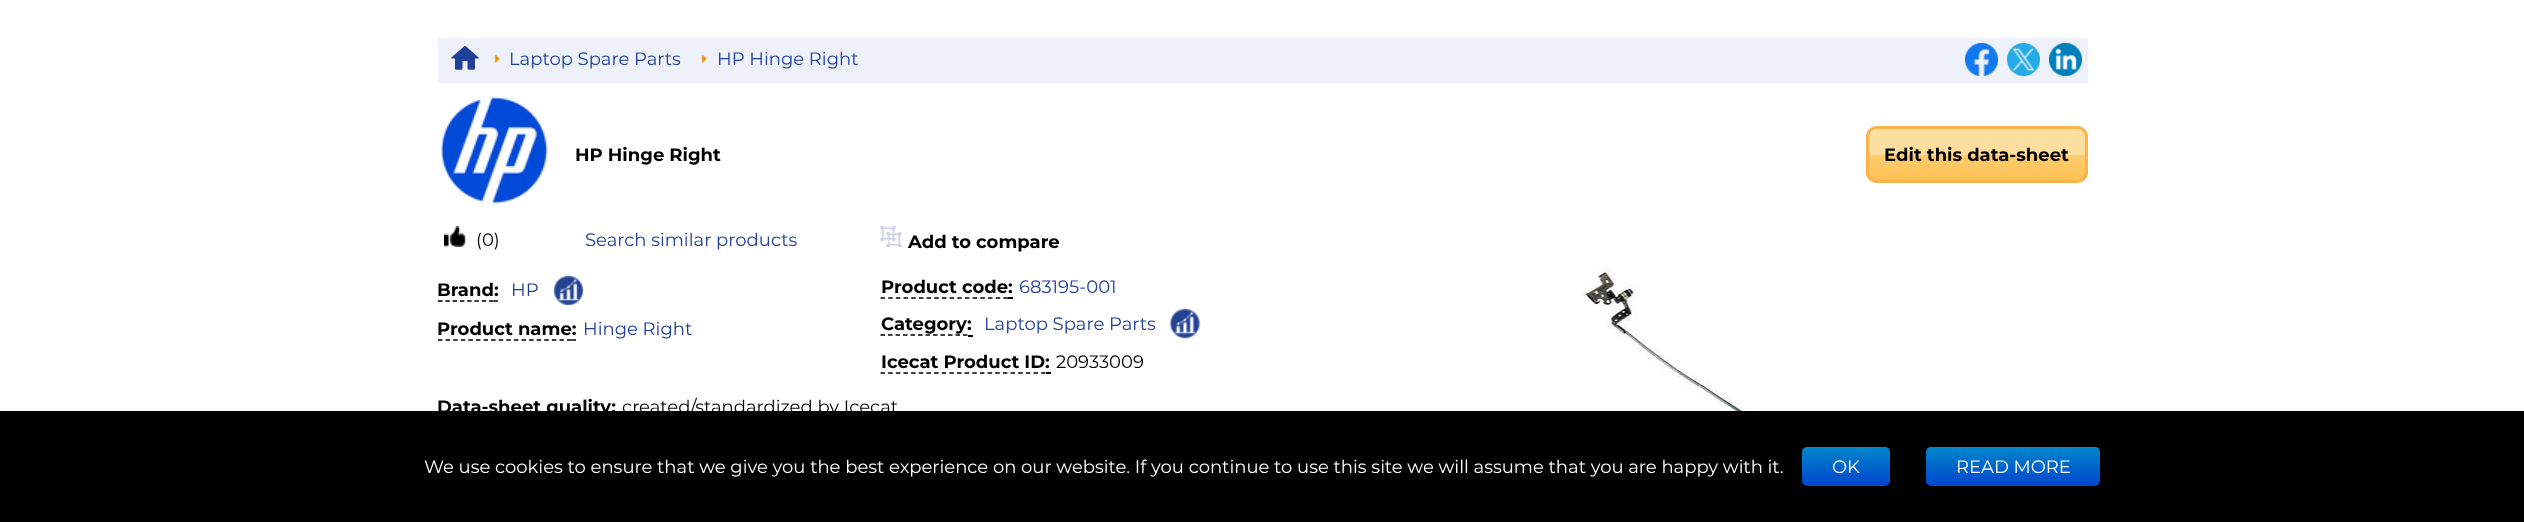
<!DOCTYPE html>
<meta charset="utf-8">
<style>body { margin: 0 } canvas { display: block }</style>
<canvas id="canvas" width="2524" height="522"></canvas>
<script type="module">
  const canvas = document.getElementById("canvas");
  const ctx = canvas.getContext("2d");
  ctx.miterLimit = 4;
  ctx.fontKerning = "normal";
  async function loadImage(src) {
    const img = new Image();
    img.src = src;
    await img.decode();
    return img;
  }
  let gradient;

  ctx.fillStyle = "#ffffff";
  ctx.fillRect(0, 0, 2524, 522);
  ctx.fillStyle = "#eef1fa";
  ctx.fillRect(438, 38, 1650, 45);
  ctx.drawImage(await loadImage("img1.png"), 451, 46, 28, 24);
  ctx.drawImage(await loadImage("img2.png"), 494, 54, 6, 9);
  ctx.font = "18px Montserrat";
  ctx.fillStyle = "#21409a";
  ctx.fillText("Laptop Spare Parts", 509, 65);
  ctx.drawImage(await loadImage("img3.png"), 701, 54, 6, 9);
  ctx.fillText("HP Hinge Right", 717, 65);
  ctx.drawImage(await loadImage("img4.png"), 1965, 43, 33, 33);
  ctx.drawImage(await loadImage("img5.png"), 2007, 43, 33, 33);
  ctx.drawImage(await loadImage("img6.png"), 2049, 43, 33, 33);
  ctx.drawImage(await loadImage("img7.png"), 438, 94, 110, 110);
  ctx.font = "bold 18px Montserrat";
  ctx.fillStyle = "#000000";
  ctx.fillText("HP Hinge Right", 575, 161);
  ctx.save();
  ctx.beginPath();
  ctx.roundRect(1866, 126, 222, 57, 11);
  ctx.clip();
  gradient = ctx.createLinearGradient(1977, 129, 1977, 180);
  gradient.addColorStop(0, "#fdde9f");
  gradient.addColorStop(0.5, "#fdde9f");
  gradient.addColorStop(0.51, "#ffcb6c");
  gradient.addColorStop(1, "#fec357");
  ctx.fillStyle = gradient;
  ctx.fillRect(1866, 129, 222, 51);
  ctx.restore();
  ctx.beginPath();
  ctx.roundRect(1867.5, 127.5, 219, 54, 9.5);
  ctx.strokeStyle = "#fbb34e";
  ctx.lineWidth = 3;
  ctx.stroke();
  ctx.fillText("Edit this data-sheet", 1884, 161);
  ctx.drawImage(await loadImage("img8.png"), 444, 226, 22, 21);
  ctx.font = "18px Montserrat";
  ctx.fillText("(0)", 476, 246);
  ctx.fillStyle = "#21409a";
  ctx.fillText("Search similar products", 585, 246);
  ctx.drawImage(await loadImage("img9.png"), 880, 226, 22, 21);
  ctx.font = "bold 18px Montserrat";
  ctx.fillStyle = "#000000";
  ctx.fillText("Add to compare", 908, 248);
  ctx.fillText("Brand:", 437, 296);
  ctx.beginPath();
  ctx.moveTo(438, 301);
  ctx.lineTo(493.5, 301);
  ctx.strokeStyle = "#000000";
  ctx.lineWidth = 1.5;
  ctx.setLineDash([4.5, 2.79]);
  ctx.stroke();
  ctx.beginPath();
  ctx.moveTo(493.5, 301);
  ctx.lineTo(498, 301);
  ctx.setLineDash([]);
  ctx.stroke();
  ctx.font = "18px Montserrat";
  ctx.fillStyle = "#21409a";
  ctx.fillText("HP", 511, 296);
  ctx.drawImage(await loadImage("img10.png"), 553, 275, 31, 31);
  ctx.font = "bold 18px Montserrat";
  ctx.fillStyle = "#000000";
  ctx.fillText("Product name:", 437, 335);
  ctx.beginPath();
  ctx.moveTo(438, 340);
  ctx.lineTo(571.5, 340);
  ctx.setLineDash([4.5, 3.09]);
  ctx.stroke();
  ctx.beginPath();
  ctx.moveTo(571.5, 340);
  ctx.lineTo(576, 340);
  ctx.setLineDash([]);
  ctx.stroke();
  ctx.font = "18px Montserrat";
  ctx.fillStyle = "#21409a";
  ctx.fillText("Hinge Right", 583, 335);
  ctx.font = "bold 18px Montserrat";
  ctx.fillStyle = "#000000";
  ctx.fillText("Product code:", 881, 293);
  ctx.beginPath();
  ctx.moveTo(880.5, 298);
  ctx.lineTo(1008, 298);
  ctx.setLineDash([4.5, 3.18]);
  ctx.stroke();
  ctx.fillRect(1008, 297, 5, 2);
  ctx.font = "18px Montserrat";
  ctx.fillStyle = "#21409a";
  ctx.fillText("683195-001", 1019, 293);
  ctx.font = "bold 18px Montserrat";
  ctx.fillStyle = "#000000";
  ctx.fillText("Category:", 881, 330);
  ctx.beginPath();
  ctx.moveTo(880.5, 335);
  ctx.lineTo(967.5, 335);
  ctx.setLineDash([4.5, 3]);
  ctx.stroke();
  ctx.fillRect(968, 335, 5, 2);
  ctx.font = "18px Montserrat";
  ctx.fillStyle = "#21409a";
  ctx.fillText("Laptop Spare Parts", 984, 330);
  ctx.drawImage(await loadImage("img11.png"), 1169, 308, 32, 31);
  ctx.font = "bold 18px Montserrat";
  ctx.fillStyle = "#000000";
  ctx.fillText("Icecat Product ID:", 881, 368);
  ctx.beginPath();
  ctx.moveTo(880.5, 373);
  ctx.lineTo(1045.5, 373);
  ctx.setLineDash([4.5, 3.15]);
  ctx.stroke();
  ctx.fillRect(1046, 372, 5, 2);
  ctx.font = "18px Montserrat";
  ctx.fillText("20933009", 1056, 368);
  ctx.font = "bold 18px Montserrat";
  ctx.fillText("Data-sheet quality:", 437, 413);
  ctx.font = "18px Montserrat";
  ctx.fillText("created/standardized by Icecat", 622, 413);
  ctx.drawImage(await loadImage("img12.png"), 1581, 266, 272, 145);
  ctx.fillRect(0, 411, 2524, 111);
  ctx.fillStyle = "#ffffff";
  ctx.fillText("We use cookies to ensure that we give you the best experience on our website. If you continue to use this site we will assume that you are happy with it.", 424, 473);
  gradient = ctx.createLinearGradient(1846, 447, 1846, 486);
  gradient.addColorStop(0, "#0088cc");
  gradient.addColorStop(1, "#0044cc");
  ctx.fillStyle = gradient;
  ctx.beginPath();
  ctx.roundRect(1802, 447, 88, 39, 5);
  ctx.fill();
  ctx.fillStyle = "#ffffff";
  ctx.fillText("OK", 1832, 473);
  gradient = ctx.createLinearGradient(2013, 447, 2013, 486);
  gradient.addColorStop(0, "#0088cc");
  gradient.addColorStop(1, "#0044cc");
  ctx.fillStyle = gradient;
  ctx.beginPath();
  ctx.roundRect(1926, 447, 174, 39, 5);
  ctx.fill();
  ctx.fillStyle = "#ffffff";
  ctx.fillText("READ MORE", 1956, 473);
</script>
